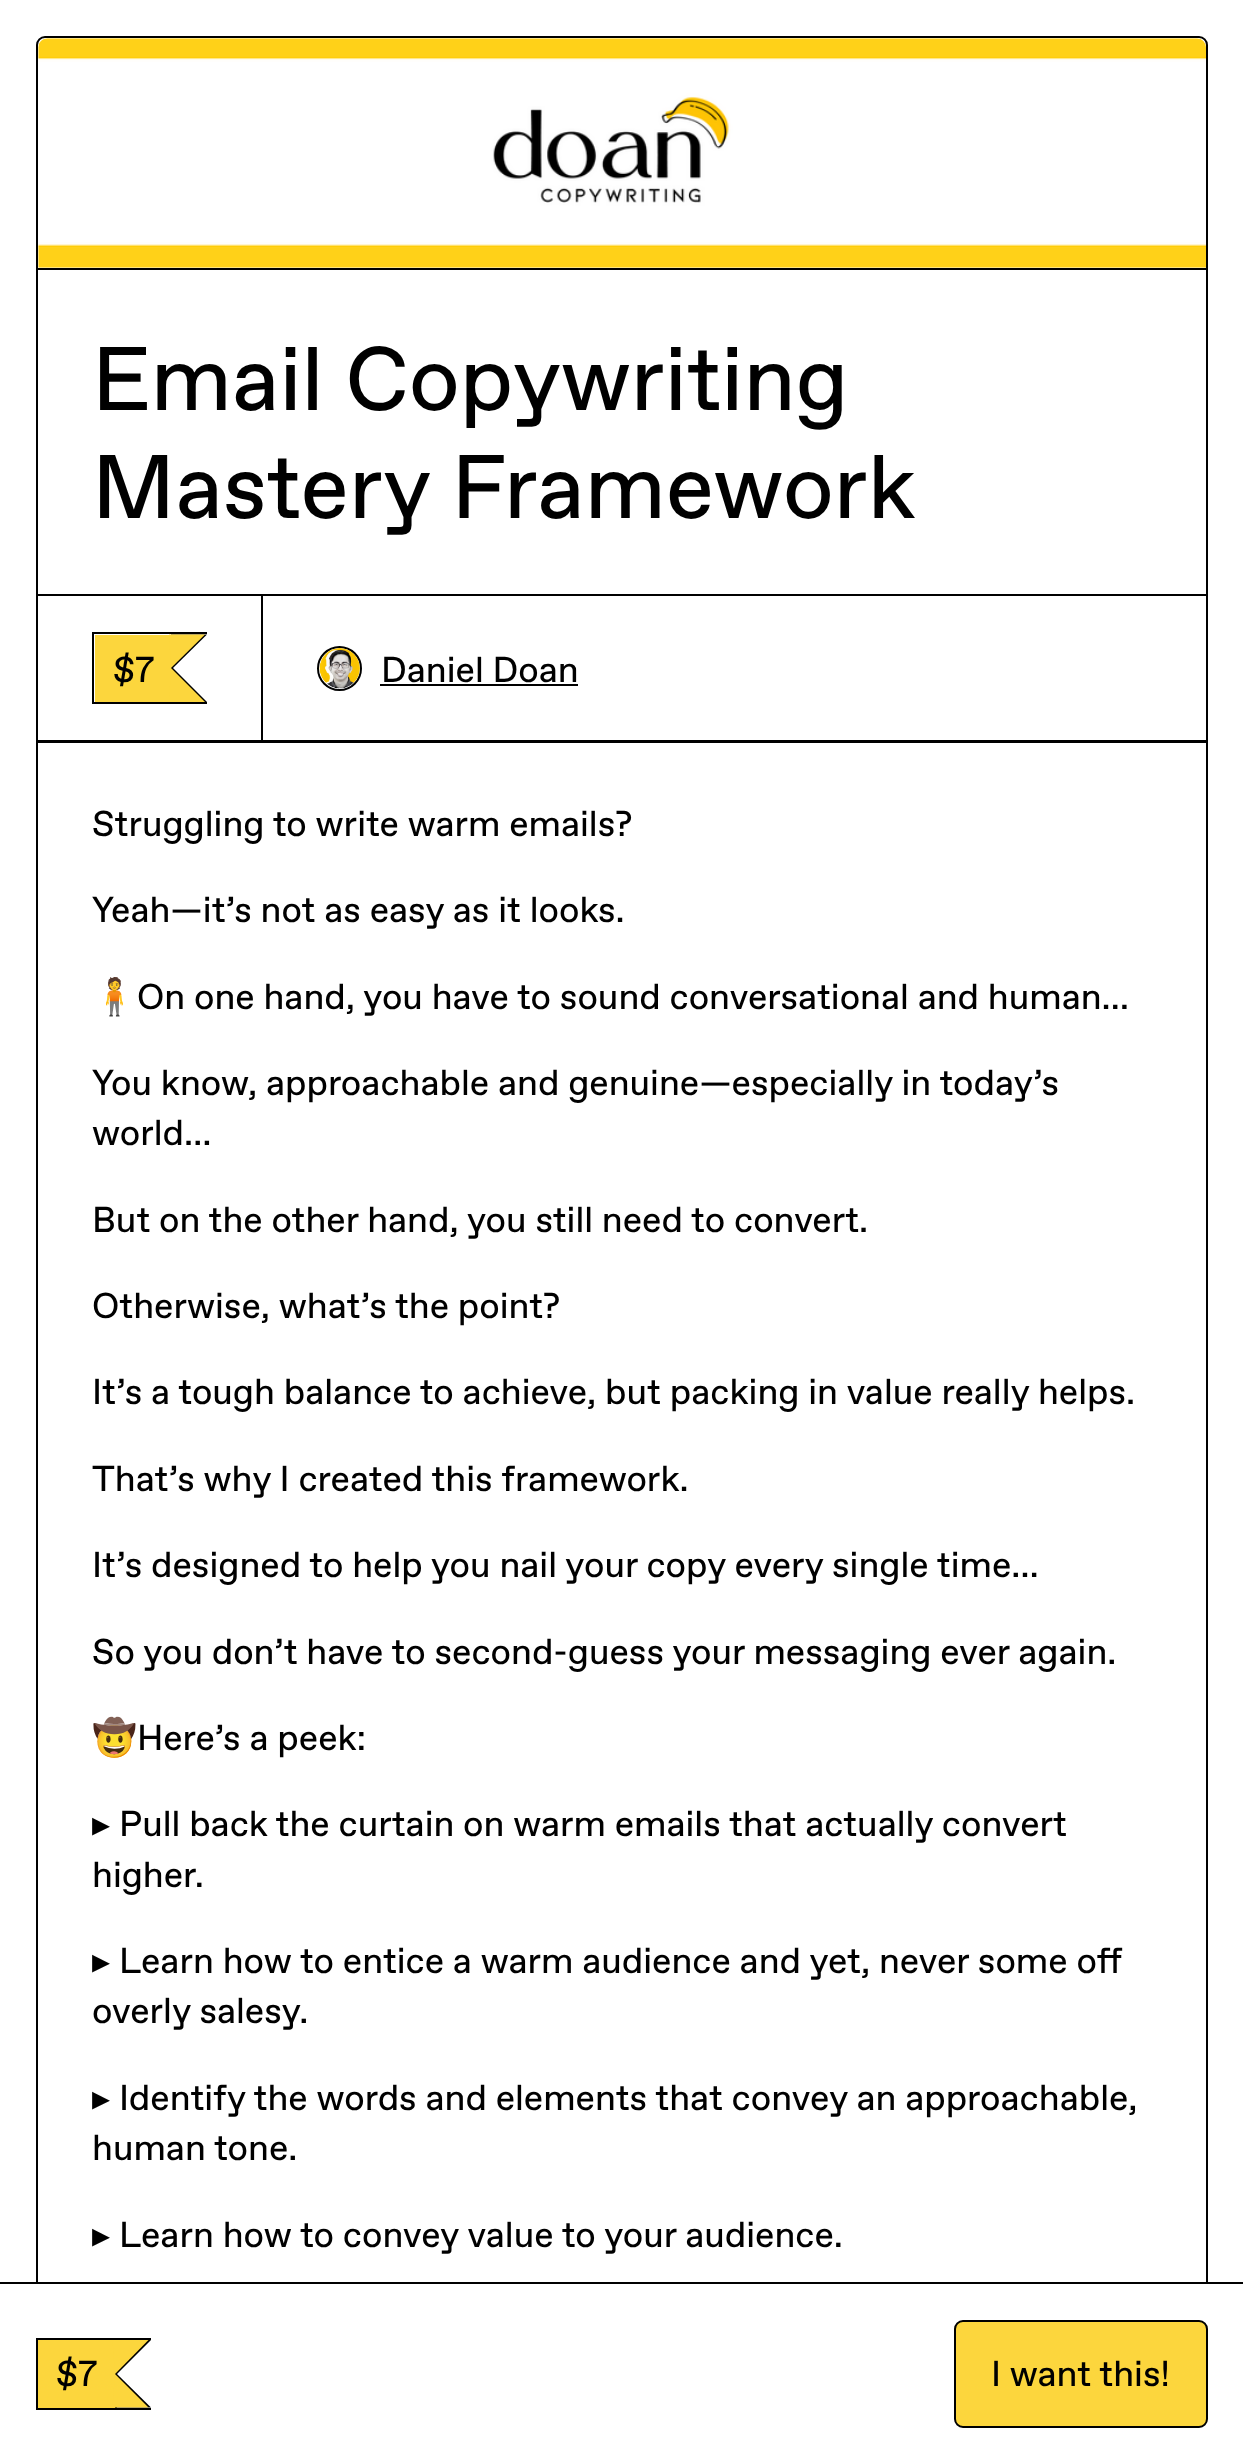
<!DOCTYPE html>
<meta charset="utf-8">
<style>body { margin: 0 } canvas { display: block }</style>
<canvas id="canvas" width="1243" height="2463"></canvas>
<script type="module">
  const canvas = document.getElementById("canvas");
  const ctx = canvas.getContext("2d");
  ctx.miterLimit = 4;
  ctx.fontKerning = "normal";
  async function loadImage(src) {
    const img = new Image();
    img.src = src;
    await img.decode();
    return img;
  }

  ctx.fillStyle = "#ffffff";
  ctx.fillRect(0, 0, 1243, 2463);
  ctx.beginPath();
  ctx.roundRect(37, 37, 1170, 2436, 8);
  ctx.strokeStyle = "#000000";
  ctx.lineWidth = 2;
  ctx.stroke();
  ctx.fillStyle = "#000000";
  ctx.fillRect(38, 268, 1168, 2);
  ctx.drawImage(await loadImage("img1.png"), 38, 38, 1168, 230);
  ctx.font = "90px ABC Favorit";
  ctx.fillText("Email Copywriting", 92, 410);
  ctx.fillText("Mastery Framework", 92, 518);
  ctx.fillRect(38, 740, 1168, 1);
  ctx.strokeRect(37, 595, 225, 147);
  ctx.fillRect(92, 632, 115, 2);
  ctx.fillRect(92, 702, 115, 2);
  ctx.fillRect(92, 632, 2, 72);
  ctx.fillStyle = "#fcd63d";
  ctx.fillRect(95, 635, 76, 67);
  ctx.fillStyle = "#000000";
  ctx.beginPath();
  ctx.moveTo(171, 634.5);
  ctx.lineTo(207, 634.5);
  ctx.lineTo(173, 668);
  ctx.closePath();
  ctx.fill();
  ctx.beginPath();
  ctx.moveTo(207, 702);
  ctx.lineTo(171, 702);
  ctx.lineTo(173, 668);
  ctx.closePath();
  ctx.fill();
  ctx.fillRect(171, 666, 2, 4);
  ctx.fillStyle = "#fcd63d";
  ctx.beginPath();
  ctx.moveTo(169, 634.5);
  ctx.lineTo(205, 634.5);
  ctx.lineTo(171, 668);
  ctx.closePath();
  ctx.fill();
  ctx.beginPath();
  ctx.moveTo(205, 702);
  ctx.lineTo(169, 702);
  ctx.lineTo(171, 668);
  ctx.closePath();
  ctx.fill();
  ctx.font = "36px ABC Favorit";
  ctx.fillStyle = "#000000";
  ctx.fillText("$7", 113, 682);
  ctx.strokeRect(262, 595, 945, 147);
  ctx.beginPath();
  ctx.arc(339.5, 668.5, 21.5, 0, Math.PI * 2);
  ctx.stroke();
  ctx.drawImage(await loadImage("img2.png"), 319, 648, 41, 41);
  ctx.fillText("Daniel Doan", 381, 682);
  ctx.fillRect(380, 684, 198, 2);
  ctx.fillText("Struggling to write warm emails?", 92, 836);
  ctx.fillText("Yeah—it’s not as easy as it looks.", 92, 922);
  ctx.font = "36px Noto Color Emoji";
  ctx.fillText("🧍", 92, 1009);
  ctx.font = "36px ABC Favorit";
  ctx.fillText("On one hand, you have to sound conversational and human…", 137, 1009);
  ctx.fillText("You know, approachable and genuine—especially in today’s", 92, 1095);
  ctx.fillText("world…", 92, 1145);
  ctx.fillText("But on the other hand, you still need to convert.", 92, 1232);
  ctx.fillText("Otherwise, what’s the point?", 92, 1318);
  ctx.fillText("It’s a tough balance to achieve, but packing in value really helps.", 92, 1404);
  ctx.fillText("That’s why I created this framework.", 92, 1491);
  ctx.fillText("It’s designed to help you nail your copy every single time…", 92, 1577);
  ctx.fillText("So you don’t have to second-guess your messaging ever again.", 92, 1664);
  ctx.font = "36px Noto Color Emoji";
  ctx.fillText("🤠", 92, 1750);
  ctx.font = "36px ABC Favorit";
  ctx.fillText("Here’s a peek:", 137, 1750);
  ctx.font = "36px DejaVu Sans";
  ctx.fillText("▸", 92, 1836);
  ctx.font = "36px ABC Favorit";
  ctx.fillText("Pull back the curtain on warm emails that actually convert", 119, 1836);
  ctx.fillText("higher.", 92, 1887);
  ctx.font = "36px DejaVu Sans";
  ctx.fillText("▸", 92, 1973);
  ctx.font = "36px ABC Favorit";
  ctx.fillText("Learn how to entice a warm audience and yet, never some off", 119, 1973);
  ctx.fillText("overly salesy.", 92, 2023);
  ctx.font = "36px DejaVu Sans";
  ctx.fillText("▸", 92, 2110);
  ctx.font = "36px ABC Favorit";
  ctx.fillText("Identify the words and elements that convey an approachable,", 119, 2110);
  ctx.fillText("human tone.", 92, 2160);
  ctx.font = "36px DejaVu Sans";
  ctx.fillText("▸", 92, 2247);
  ctx.font = "36px ABC Favorit";
  ctx.fillText("Learn how to convey value to your audience.", 119, 2247);
  ctx.fillRect(0, 2282, 1243, 2);
  ctx.fillStyle = "#ffffff";
  ctx.fillRect(36, 2284, 1172, 179);
  ctx.fillStyle = "#000000";
  ctx.fillRect(36, 2338, 115, 2);
  ctx.fillRect(36, 2408, 115, 2);
  ctx.fillRect(36, 2338, 2, 72);
  ctx.fillStyle = "#fcd63d";
  ctx.fillRect(38, 2340, 77, 68);
  ctx.fillStyle = "#000000";
  ctx.beginPath();
  ctx.moveTo(115, 2340);
  ctx.lineTo(151, 2340);
  ctx.lineTo(117, 2374);
  ctx.closePath();
  ctx.fill();
  ctx.beginPath();
  ctx.moveTo(151, 2407.5);
  ctx.lineTo(115, 2407.5);
  ctx.lineTo(117, 2374);
  ctx.closePath();
  ctx.fill();
  ctx.fillRect(115, 2372, 2, 36);
  ctx.fillStyle = "#fcd63d";
  ctx.beginPath();
  ctx.moveTo(112.5, 2340);
  ctx.lineTo(148.5, 2340);
  ctx.lineTo(115, 2374);
  ctx.closePath();
  ctx.fill();
  ctx.beginPath();
  ctx.moveTo(148.5, 2407.5);
  ctx.lineTo(112.5, 2407.5);
  ctx.lineTo(115, 2374);
  ctx.closePath();
  ctx.fill();
  ctx.fillStyle = "#000000";
  ctx.fillText("$7", 56, 2386);
  ctx.fillStyle = "#fcd63d";
  ctx.beginPath();
  ctx.roundRect(955, 2321, 252, 106, 8);
  ctx.fill();
  ctx.stroke();
  ctx.fillStyle = "#000000";
  ctx.fillText("I want this!", 991, 2386);
</script>
